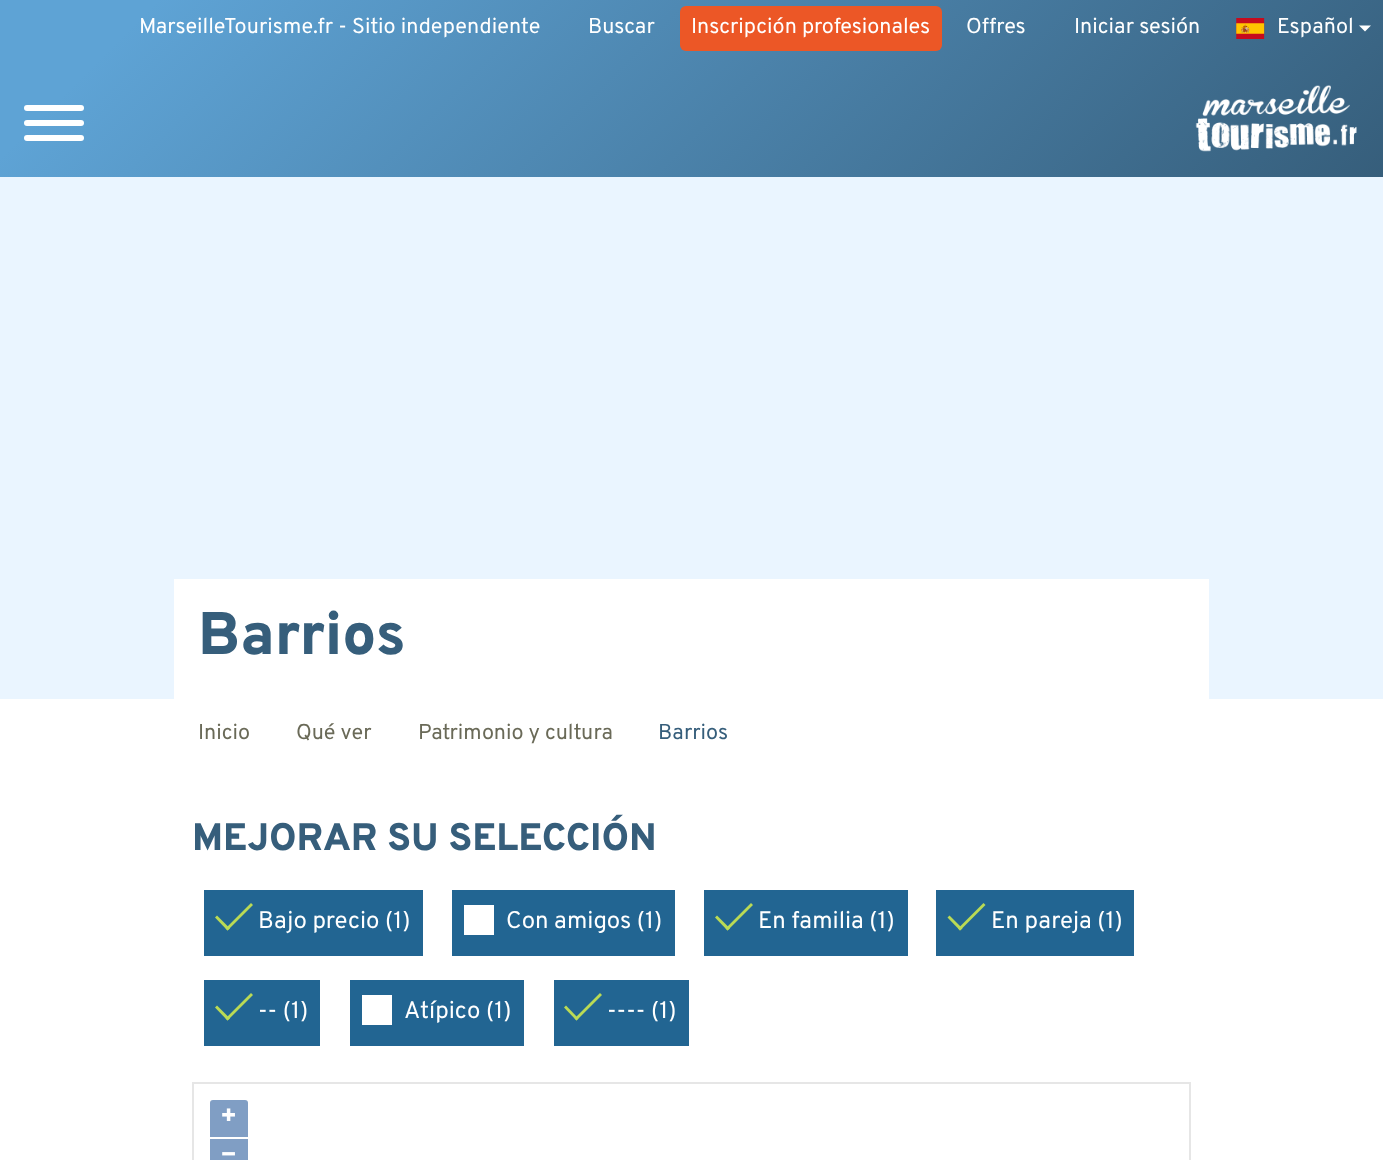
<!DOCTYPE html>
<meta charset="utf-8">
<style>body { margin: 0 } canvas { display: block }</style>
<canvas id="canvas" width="1383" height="1160"></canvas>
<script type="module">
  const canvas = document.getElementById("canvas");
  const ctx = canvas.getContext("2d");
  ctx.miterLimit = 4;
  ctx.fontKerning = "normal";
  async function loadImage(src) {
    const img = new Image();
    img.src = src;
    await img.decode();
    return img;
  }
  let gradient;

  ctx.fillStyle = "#ffffff";
  ctx.fillRect(0, 0, 1383, 1160);
  gradient = ctx.createLinearGradient(302, -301, 1082, 479);
  gradient.addColorStop(0.1, "#5ea3d5");
  gradient.addColorStop(1, "#365e7b");
  ctx.fillStyle = gradient;
  ctx.fillRect(0, 0, 1383, 177);
  ctx.font = "21.6px Overpass";
  ctx.fillStyle = "#ffffff";
  ctx.fillText("MarseilleTourisme.fr - Sitio independiente", 139, 33);
  ctx.fillText("Buscar", 588, 33);
  ctx.fillStyle = "#ec5726";
  ctx.beginPath();
  ctx.roundRect(680, 6, 262, 45, 6);
  ctx.fill();
  ctx.fillStyle = "#ffffff";
  ctx.fillText("Inscripción profesionales", 691, 33);
  ctx.fillText("Offres", 966, 33);
  ctx.fillText("Iniciar sesión", 1074, 33);
  ctx.drawImage(await loadImage("img1.png"), 1236, 18, 29, 21);
  ctx.fillText("Español", 1277, 33);
  ctx.beginPath();
  ctx.moveTo(1359, 25.5);
  ctx.lineTo(1371, 25.5);
  ctx.lineTo(1365, 31.5);
  ctx.closePath();
  ctx.fill();
  ctx.beginPath();
  ctx.roundRect(24, 135, 60, 6, 3);
  ctx.fill();
  ctx.beginPath();
  ctx.roundRect(24, 105, 60, 6, 3);
  ctx.fill();
  ctx.beginPath();
  ctx.roundRect(24, 120, 60, 6, 3);
  ctx.fill();
  ctx.drawImage(await loadImage("img2.png"), 1195, 85, 162, 67);
  ctx.fillStyle = "#eaf5ff";
  ctx.fillRect(0, 177, 1383, 522);
  ctx.fillStyle = "#ffffff";
  ctx.fillRect(174, 579, 1035, 120);
  ctx.font = "800 60px Overpass";
  ctx.fillStyle = "#365e7b";
  ctx.fillText("Barrios", 198, 654);
  ctx.font = "21.6px Overpass";
  ctx.fillStyle = "#6a6a58";
  ctx.fillText("Inicio", 198, 739);
  ctx.fillText("Qué ver", 296, 739);
  ctx.fillText("Patrimonio y cultura", 418, 739);
  ctx.fillStyle = "#365e7b";
  ctx.fillText("Barrios", 658, 739);
  ctx.font = "800 38.4px Overpass";
  ctx.fillText("MEJORAR SU SELECCIÓN", 192, 850);
  ctx.fillStyle = "#226592";
  ctx.fillRect(204, 890, 219, 66);
  ctx.fillStyle = "#bada55";
  ctx.beginPath();
  ctx.moveTo(251, 903);
  ctx.lineTo(253, 905);
  ctx.lineTo(227.5, 930.5);
  ctx.lineTo(225.5, 928.5);
  ctx.closePath();
  ctx.fill();
  ctx.beginPath();
  ctx.moveTo(217, 915.5);
  ctx.lineTo(230, 928.5);
  ctx.lineTo(227.5, 930.5);
  ctx.lineTo(215, 917.5);
  ctx.closePath();
  ctx.fill();
  ctx.font = "24px Overpass";
  ctx.fillStyle = "#ffffff";
  ctx.fillText("Bajo precio (1)", 258, 928);
  ctx.fillStyle = "#226592";
  ctx.fillRect(452, 890, 223, 66);
  ctx.fillStyle = "#ffffff";
  ctx.fillRect(464, 905, 30, 30);
  ctx.fillText("Con amigos (1)", 506, 928);
  ctx.fillStyle = "#226592";
  ctx.fillRect(704, 890, 204, 66);
  ctx.fillStyle = "#bada55";
  ctx.beginPath();
  ctx.moveTo(751, 903);
  ctx.lineTo(753, 905);
  ctx.lineTo(727.5, 930.5);
  ctx.lineTo(725.5, 928.5);
  ctx.closePath();
  ctx.fill();
  ctx.beginPath();
  ctx.moveTo(717, 915.5);
  ctx.lineTo(730, 928.5);
  ctx.lineTo(727.5, 930.5);
  ctx.lineTo(715, 917.5);
  ctx.closePath();
  ctx.fill();
  ctx.fillStyle = "#ffffff";
  ctx.fillText("En familia (1)", 758, 928);
  ctx.fillStyle = "#226592";
  ctx.fillRect(936, 890, 198, 66);
  ctx.fillStyle = "#bada55";
  ctx.beginPath();
  ctx.moveTo(983.5, 903);
  ctx.lineTo(985.5, 905);
  ctx.lineTo(960, 930.5);
  ctx.lineTo(958, 928.5);
  ctx.closePath();
  ctx.fill();
  ctx.beginPath();
  ctx.moveTo(949.5, 915.5);
  ctx.lineTo(962.5, 928.5);
  ctx.lineTo(960, 930.5);
  ctx.lineTo(947.5, 917.5);
  ctx.closePath();
  ctx.fill();
  ctx.fillStyle = "#ffffff";
  ctx.fillText("En pareja (1)", 991, 928);
  ctx.fillStyle = "#226592";
  ctx.fillRect(204, 980, 116, 66);
  ctx.fillStyle = "#bada55";
  ctx.beginPath();
  ctx.moveTo(251, 993);
  ctx.lineTo(253, 995);
  ctx.lineTo(227.5, 1020.5);
  ctx.lineTo(225.5, 1018.5);
  ctx.closePath();
  ctx.fill();
  ctx.beginPath();
  ctx.moveTo(217, 1005.5);
  ctx.lineTo(230, 1018.5);
  ctx.lineTo(227.5, 1020.5);
  ctx.lineTo(215, 1007.5);
  ctx.closePath();
  ctx.fill();
  ctx.fillStyle = "#ffffff";
  ctx.fillText("-- (1)", 258, 1018);
  ctx.fillStyle = "#226592";
  ctx.fillRect(350, 980, 174, 66);
  ctx.fillStyle = "#ffffff";
  ctx.fillRect(362, 995, 30, 30);
  ctx.fillText("Atípico (1)", 404, 1018);
  ctx.fillStyle = "#226592";
  ctx.fillRect(554, 980, 135, 66);
  ctx.fillStyle = "#bada55";
  ctx.beginPath();
  ctx.moveTo(600, 993);
  ctx.lineTo(602, 995);
  ctx.lineTo(576.5, 1020.5);
  ctx.lineTo(574.5, 1018.5);
  ctx.closePath();
  ctx.fill();
  ctx.beginPath();
  ctx.moveTo(566, 1005.5);
  ctx.lineTo(578.5, 1018.5);
  ctx.lineTo(576.5, 1020.5);
  ctx.lineTo(564, 1007.5);
  ctx.closePath();
  ctx.fill();
  ctx.fillStyle = "#ffffff";
  ctx.fillText("---- (1)", 607, 1018);
  ctx.strokeStyle = "#e6e6e6";
  ctx.lineWidth = 2;
  ctx.strokeRect(193, 1083, 997, 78);
  ctx.fillStyle = "#809ec4";
  ctx.beginPath();
  ctx.roundRect(210, 1100, 38, 37, [3, 3, 0, 0]);
  ctx.fill();
  ctx.font = "bold 27px Overpass";
  ctx.fillStyle = "#ffffff";
  ctx.fillText("+", 220, 1124);
  ctx.fillStyle = "#809ec4";
  ctx.fillRect(210, 1139, 38, 21);
  ctx.fillStyle = "#ffffff";
  ctx.fillText("−", 220, 1163);
</script>
